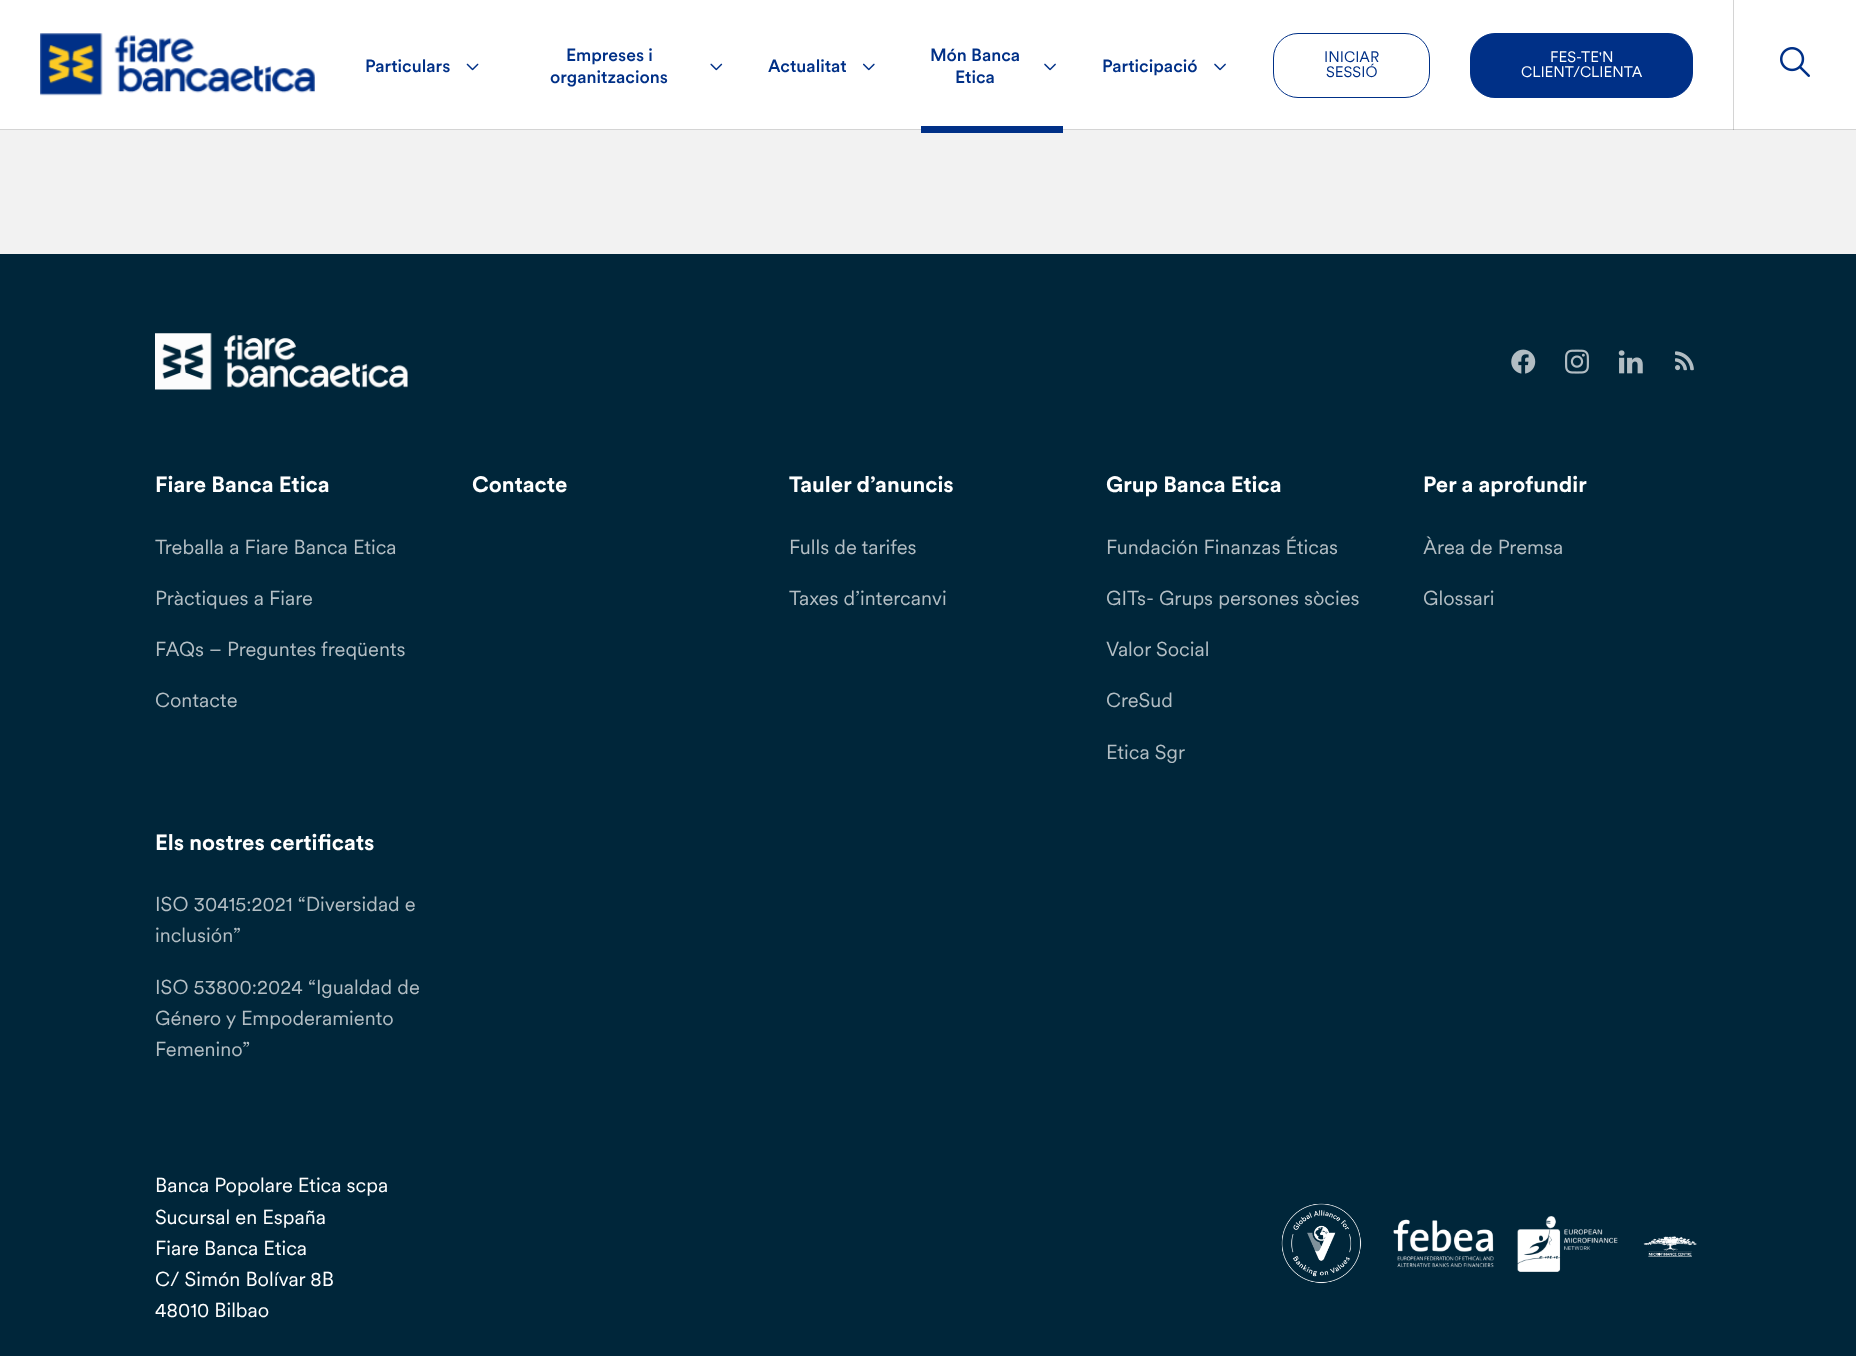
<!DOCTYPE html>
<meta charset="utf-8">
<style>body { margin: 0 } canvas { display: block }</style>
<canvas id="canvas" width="1856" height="1356"></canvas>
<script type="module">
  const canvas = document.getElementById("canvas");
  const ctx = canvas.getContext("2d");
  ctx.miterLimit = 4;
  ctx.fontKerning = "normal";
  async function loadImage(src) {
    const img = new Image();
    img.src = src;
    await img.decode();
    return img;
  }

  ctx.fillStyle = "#00263a";
  ctx.fillRect(0, 0, 1856, 1356);
  ctx.fillStyle = "#ffffff";
  ctx.fillRect(0, 0, 1856, 129);
  ctx.fillStyle = "#d4d4d4";
  ctx.fillRect(1733, 0, 1, 130);
  ctx.fillRect(0, 129, 1856, 1);
  ctx.fillStyle = "#b1b1b1";
  ctx.fillRect(1733, 129, 1, 1);
  ctx.drawImage(await loadImage("img1.png"), 40, 33, 275, 63);
  ctx.font = "500 17.5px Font";
  ctx.fillStyle = "#003087";
  ctx.fillText("Particulars", 365, 72);
  ctx.drawImage(await loadImage("img2.png"), 466, 63, 13, 8);
  ctx.fillText("Empreses i", 566, 61);
  ctx.drawImage(await loadImage("img3.png"), 710, 63, 13, 8);
  ctx.fillText("organitzacions", 550, 83);
  ctx.fillText("Actualitat", 768, 72);
  ctx.drawImage(await loadImage("img4.png"), 863, 63, 12, 8);
  ctx.fillStyle = "#f2f2f2";
  ctx.fillRect(0, 130, 1856, 124);
  ctx.fillStyle = "#003087";
  ctx.fillRect(921, 126, 142, 7);
  ctx.fillText("Món Banca", 930, 61);
  ctx.drawImage(await loadImage("img5.png"), 1044, 63, 12, 8);
  ctx.fillText("Etica", 955, 83);
  ctx.fillText("Participació", 1102, 72);
  ctx.drawImage(await loadImage("img5.png"), 1214, 63, 12, 8);
  ctx.beginPath();
  ctx.roundRect(1273.5, 33.5, 156, 64, 24.5);
  ctx.strokeStyle = "#003087";
  ctx.stroke();
  ctx.font = "15px Font";
  ctx.fillText("INICIAR", 1324, 62);
  ctx.fillText("SESSIÓ", 1326, 77);
  ctx.beginPath();
  ctx.roundRect(1470.5, 33.5, 222, 64, 24.5);
  ctx.fill();
  ctx.stroke();
  ctx.fillStyle = "#ffffff";
  ctx.fillText("FES-TE'N", 1550, 62);
  ctx.fillText("CLIENT/CLIENTA", 1521, 77);
  ctx.drawImage(await loadImage("img6.png"), 1780, 47, 30, 30);
  ctx.drawImage(await loadImage("img7.png"), 155, 333, 253, 57);
  ctx.drawImage(await loadImage("img8.png"), 1511, 349, 25, 25);
  ctx.drawImage(await loadImage("img9.png"), 1565, 349, 24, 25);
  ctx.drawImage(await loadImage("img10.png"), 1618, 350, 25, 24);
  ctx.drawImage(await loadImage("img11.png"), 1675, 351, 19, 20);
  ctx.font = "bold 22px Font";
  ctx.fillText("Fiare Banca Etica", 155, 492);
  ctx.font = "20px Font";
  ctx.fillStyle = "#b3bec4";
  ctx.fillText("Treballa a Fiare Banca Etica", 155, 554);
  ctx.fillText("Pràctiques a Fiare", 155, 605);
  ctx.fillText("FAQs – Preguntes freqüents", 155, 656);
  ctx.fillText("Contacte", 155, 707);
  ctx.font = "bold 22px Font";
  ctx.fillStyle = "#ffffff";
  ctx.fillText("Contacte", 472, 492);
  ctx.fillText("Tauler d’anuncis", 789, 492);
  ctx.font = "20px Font";
  ctx.fillStyle = "#b3bec4";
  ctx.fillText("Fulls de tarifes", 789, 554);
  ctx.fillText("Taxes d’intercanvi", 789, 605);
  ctx.font = "bold 22px Font";
  ctx.fillStyle = "#ffffff";
  ctx.fillText("Grup Banca Etica", 1106, 492);
  ctx.font = "20px Font";
  ctx.fillStyle = "#b3bec4";
  ctx.fillText("Fundación Finanzas Éticas", 1106, 554);
  ctx.fillText("GITs- Grups persones sòcies", 1106, 605);
  ctx.fillText("Valor Social", 1106, 656);
  ctx.fillText("CreSud", 1106, 707);
  ctx.fillText("Etica Sgr", 1106, 759);
  ctx.font = "bold 22px Font";
  ctx.fillStyle = "#ffffff";
  ctx.fillText("Per a aprofundir", 1423, 492);
  ctx.font = "20px Font";
  ctx.fillStyle = "#b3bec4";
  ctx.fillText("Àrea de Premsa", 1423, 554);
  ctx.fillText("Glossari", 1423, 605);
  ctx.font = "bold 22px Font";
  ctx.fillStyle = "#ffffff";
  ctx.fillText("Els nostres certificats", 155, 850);
  ctx.font = "20px Font";
  ctx.fillStyle = "#b3bec4";
  ctx.fillText("ISO 30415:2021 “Diversidad e", 155, 911);
  ctx.fillText("inclusión”", 155, 942);
  ctx.fillText("ISO 53800:2024 “Igualdad de", 155, 994);
  ctx.fillText("Género y Empoderamiento", 155, 1025);
  ctx.fillText("Femenino”", 155, 1056);
  ctx.fillStyle = "#ffffff";
  ctx.fillText("Banca Popolare Etica scpa", 155, 1192);
  ctx.fillText("Sucursal en España", 155, 1224);
  ctx.fillText("Fiare Banca Etica", 155, 1255);
  ctx.fillText("C/ Simón Bolívar 8B", 155, 1286);
  ctx.fillText("48010 Bilbao", 155, 1317);
  ctx.drawImage(await loadImage("img12.png"), 1281, 1203, 81, 81);
  ctx.drawImage(await loadImage("img13.png"), 1393, 1219, 101, 49);
  ctx.drawImage(await loadImage("img14.png"), 1517, 1216, 101, 56);
  ctx.drawImage(await loadImage("img15.png"), 1643, 1236, 54, 21);
</script>
